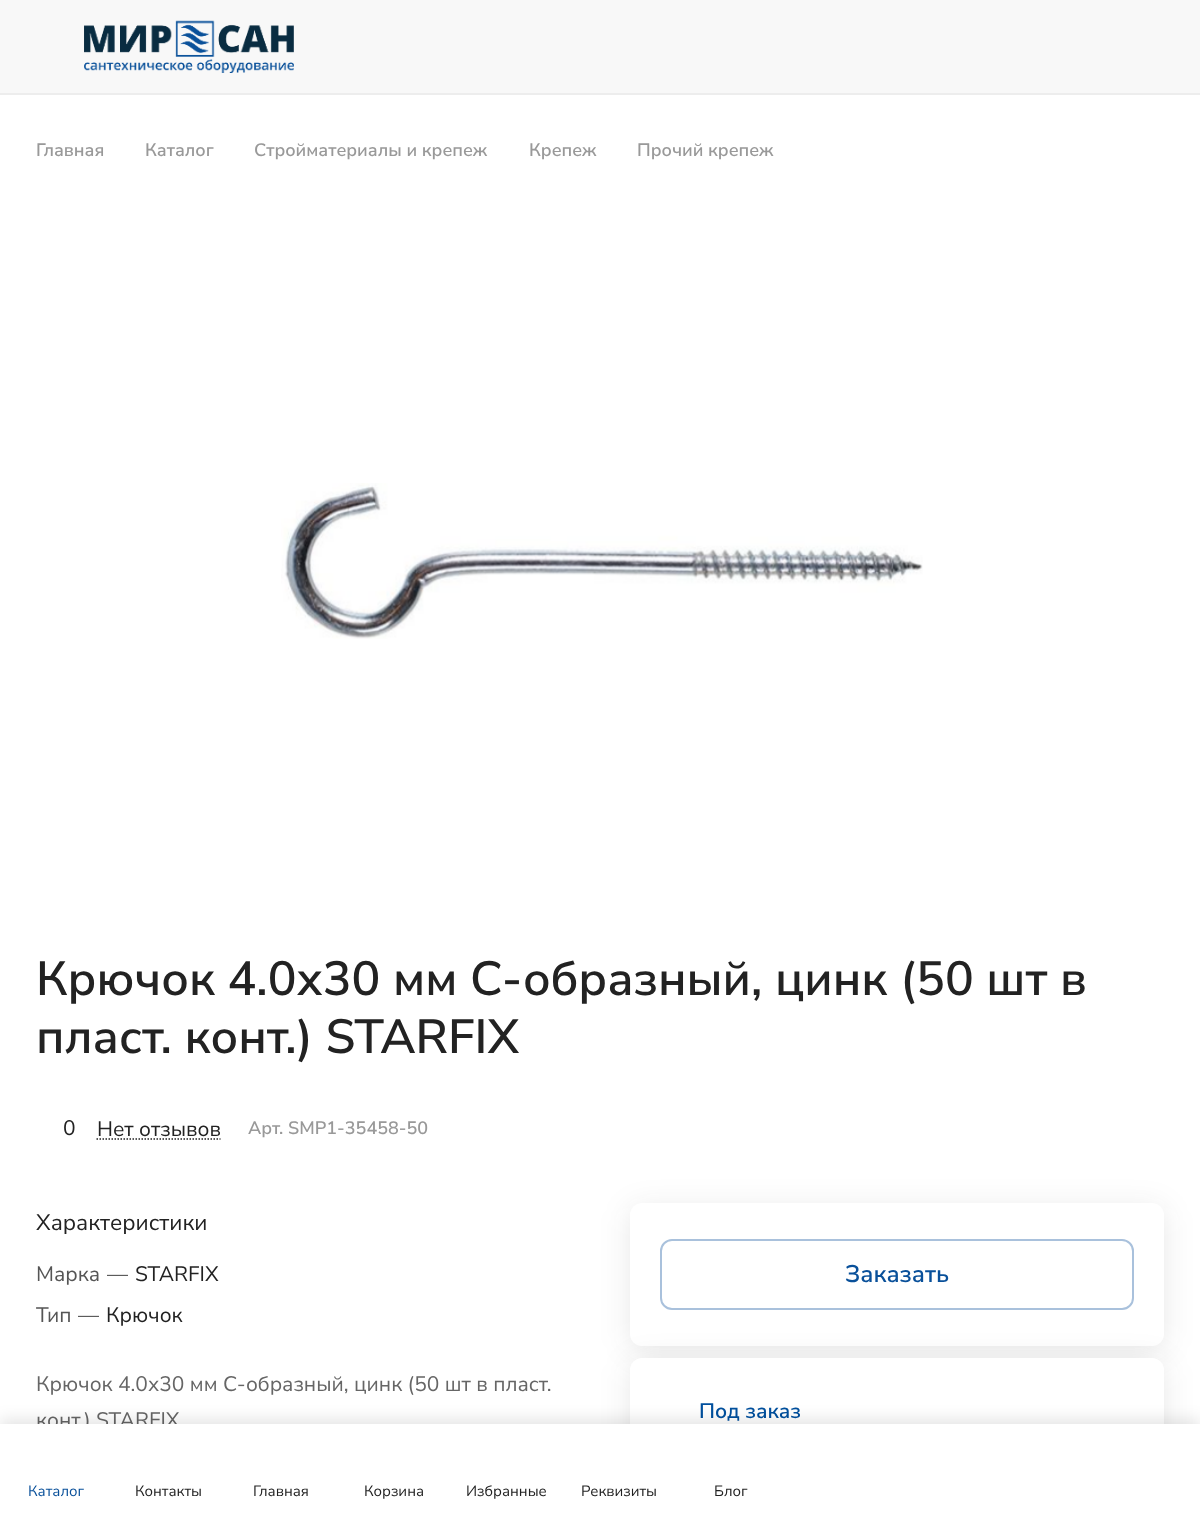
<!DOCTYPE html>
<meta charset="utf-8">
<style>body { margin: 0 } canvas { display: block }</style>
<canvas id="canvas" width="1200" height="1514"></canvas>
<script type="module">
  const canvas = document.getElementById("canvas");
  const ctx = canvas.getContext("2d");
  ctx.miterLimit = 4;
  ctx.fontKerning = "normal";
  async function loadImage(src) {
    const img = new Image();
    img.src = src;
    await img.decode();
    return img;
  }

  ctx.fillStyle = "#ffffff";
  ctx.fillRect(0, 0, 1200, 1514);
  ctx.fillStyle = "#ededed";
  ctx.fillRect(0, 93, 1200, 2);
  ctx.fillStyle = "#f8f8f8";
  ctx.fillRect(0, 0, 1200, 93);
  ctx.drawImage(await loadImage("img1.png"), 84, 20, 210, 53);
  ctx.font = "600 18px Nunito Sans";
  ctx.fillStyle = "#999999";
  ctx.fillText("Главная", 36, 156);
  ctx.fillText("Каталог", 145, 156);
  ctx.fillText("Стройматериалы и крепеж", 254, 156);
  ctx.fillText("Крепеж", 529, 156);
  ctx.fillText("Прочий крепеж", 637, 156);
  ctx.drawImage(await loadImage("img2.png"), 281, 483, 642, 156);
  ctx.font = "600 48px Nunito Sans";
  ctx.fillStyle = "#222222";
  ctx.fillText("Крючок 4.0х30 мм С-образный, цинк (50 шт в", 36, 995);
  ctx.fillText("пласт. конт.) STARFIX", 36, 1053);
  ctx.font = "21px Nunito Sans";
  ctx.fillText("0", 63, 1135);
  ctx.fillText("Нет отзывов", 97, 1136);
  ctx.beginPath();
  ctx.moveTo(96.5, 1139);
  ctx.lineTo(220.5, 1139);
  ctx.strokeStyle = "#222222";
  ctx.lineWidth = 1.5;
  ctx.setLineDash([1.5, 1.5]);
  ctx.stroke();
  ctx.font = "600 18px Nunito Sans";
  ctx.fillStyle = "#999999";
  ctx.fillText("Арт. SMP1-35458-50", 248, 1134);
  ctx.font = "22.5px Nunito Sans";
  ctx.fillStyle = "#222222";
  ctx.fillText("Характеристики", 36, 1230);
  ctx.font = "21px Nunito Sans";
  ctx.fillStyle = "#555555";
  ctx.fillText("Марка", 36, 1281);
  ctx.fillText("—", 107, 1281);
  ctx.fillStyle = "#222222";
  ctx.fillText("STARFIX", 135, 1281);
  ctx.fillStyle = "#555555";
  ctx.fillText("Тип", 36, 1322);
  ctx.fillText("—", 78, 1322);
  ctx.fillStyle = "#222222";
  ctx.fillText("Крючок", 106, 1322);
  ctx.fillStyle = "#666666";
  ctx.fillText("Крючок 4.0х30 мм С-образный, цинк (50 шт в пласт.", 36, 1391);
  ctx.fillText("конт.) STARFIX", 36, 1427);
  ctx.fillStyle = "rgba(34, 34, 34, 0.1)";
  ctx.filter = "blur(15px)";
  ctx.beginPath();
  ctx.roundRect(630, 1208, 534, 142, 12);
  ctx.fill();
  ctx.filter = "none";
  ctx.fillStyle = "#ffffff";
  ctx.beginPath();
  ctx.roundRect(630, 1203, 534, 143, 12);
  ctx.fill();
  ctx.beginPath();
  ctx.roundRect(661, 1240, 472, 69, 11);
  ctx.strokeStyle = "#a9c1dc";
  ctx.lineWidth = 2;
  ctx.setLineDash([]);
  ctx.stroke();
  ctx.font = "600 24px Nunito Sans";
  ctx.fillStyle = "#09509a";
  ctx.fillText("Заказать", 845, 1282);
  ctx.fillStyle = "rgba(34, 34, 34, 0.1)";
  ctx.filter = "blur(15px)";
  ctx.beginPath();
  ctx.roundRect(630, 1362, 534, 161, 12);
  ctx.fill();
  ctx.filter = "none";
  ctx.fillStyle = "#ffffff";
  ctx.beginPath();
  ctx.roundRect(630, 1358, 534, 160, 12);
  ctx.fill();
  ctx.font = "600 21px Nunito Sans";
  ctx.fillStyle = "#00509e";
  ctx.fillText("Под заказ", 699, 1418);
  ctx.fillStyle = "rgba(0, 0, 0, 0.1)";
  ctx.filter = "blur(7.5px)";
  ctx.beginPath();
  ctx.rect(0, 1419, 1200, 92);
  ctx.fill();
  ctx.filter = "none";
  ctx.fillStyle = "#ffffff";
  ctx.fillRect(0, 1424, 1200, 90);
  ctx.font = "15px Nunito Sans";
  ctx.fillStyle = "#09509a";
  ctx.fillText("Каталог", 28, 1496);
  ctx.fillStyle = "#222222";
  ctx.fillText("Контакты", 135, 1496);
  ctx.fillText("Главная", 253, 1496);
  ctx.fillText("Корзина", 364, 1496);
  ctx.fillText("Избранные", 466, 1496);
  ctx.fillText("Реквизиты", 581, 1496);
  ctx.fillText("Блог", 714, 1496);
</script>
